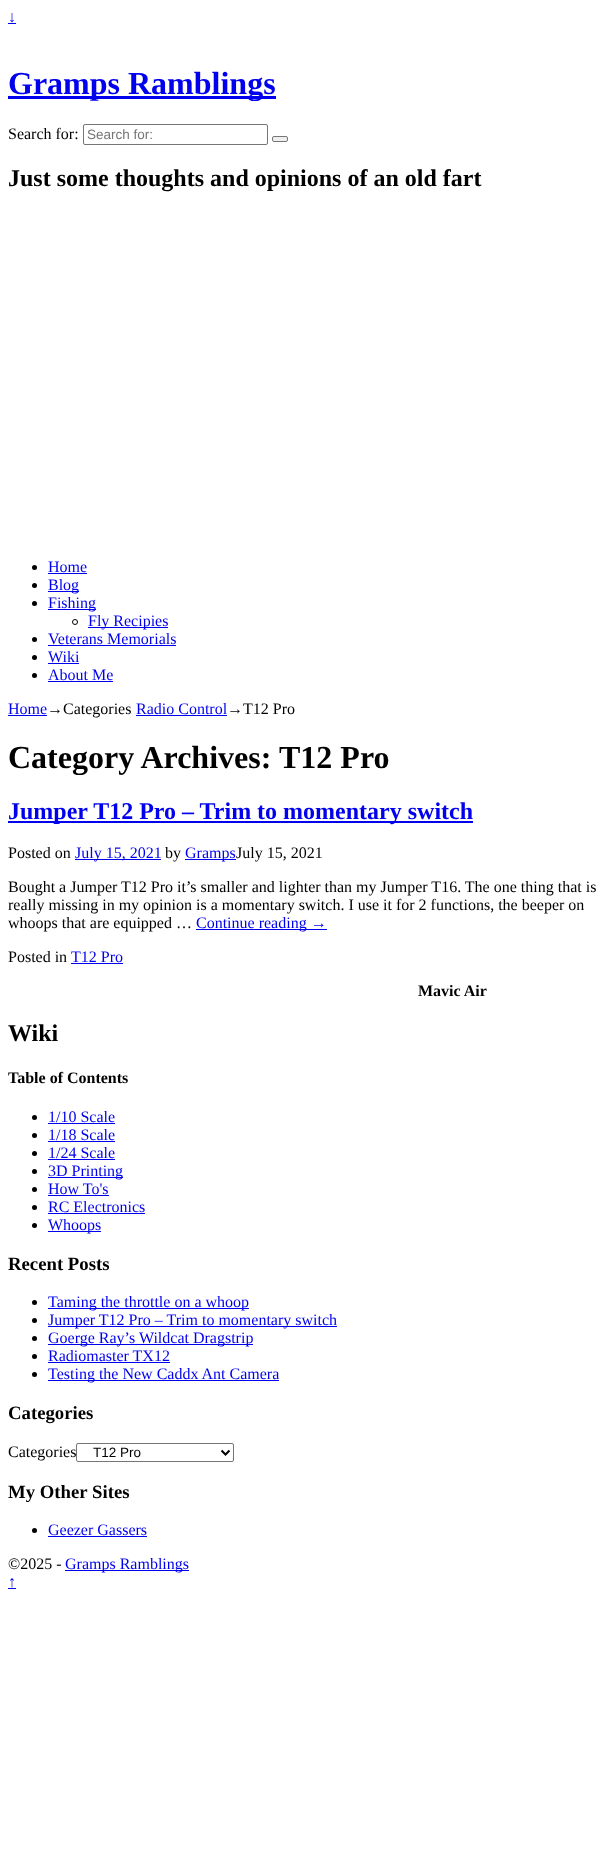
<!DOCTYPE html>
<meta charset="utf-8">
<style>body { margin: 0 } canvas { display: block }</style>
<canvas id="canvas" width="613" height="1859"></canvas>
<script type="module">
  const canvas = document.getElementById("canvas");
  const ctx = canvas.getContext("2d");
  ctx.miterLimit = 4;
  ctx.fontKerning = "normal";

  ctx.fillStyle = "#ffffff";
  ctx.fillRect(0, 0, 613, 1859);
  ctx.font = "16px Liberation Serif";
  ctx.fillStyle = "#0000ee";
  ctx.fillText("↓", 8, 22);
  ctx.fillRect(8, 23, 8, 1);
  ctx.fillRect(8, 96, 268, 3);
  ctx.font = "bold 32px Liberation Serif";
  ctx.fillText("Gramps Ramblings", 8, 94);
  ctx.font = "16px Liberation Serif";
  ctx.fillStyle = "#000000";
  ctx.fillText("Search for:", 8, 139);
  ctx.beginPath();
  ctx.roundRect(83.5, 124.5, 184, 20, 1.5);
  ctx.strokeStyle = "#767676";
  ctx.stroke();
  ctx.font = "13.5px Liberation Sans";
  ctx.fillStyle = "#757575";
  ctx.fillText("Search for:", 87, 139);
  ctx.fillStyle = "#efefef";
  ctx.beginPath();
  ctx.roundRect(272.5, 136.5, 15, 5, 1.5);
  ctx.fill();
  ctx.stroke();
  ctx.font = "bold 24px Liberation Serif";
  ctx.fillStyle = "#000000";
  ctx.fillText("Just some thoughts and opinions of an old fart", 8, 186);
  ctx.beginPath();
  ctx.arc(34.5, 567.5, 2.5, 0, Math.PI * 2);
  ctx.fill();
  ctx.font = "16px Liberation Serif";
  ctx.fillStyle = "#0000ee";
  ctx.fillText("Home", 48, 572);
  ctx.fillRect(48, 573, 39, 1);
  ctx.fillStyle = "#000000";
  ctx.beginPath();
  ctx.arc(34.5, 585.5, 2.5, 0, Math.PI * 2);
  ctx.fill();
  ctx.fillStyle = "#0000ee";
  ctx.fillRect(48, 591, 31, 1);
  ctx.fillText("Blog", 48, 590);
  ctx.fillStyle = "#000000";
  ctx.beginPath();
  ctx.arc(34.5, 603.5, 2.5, 0, Math.PI * 2);
  ctx.fill();
  ctx.fillStyle = "#0000ee";
  ctx.fillRect(48, 609, 48, 1);
  ctx.fillText("Fishing", 48, 608);
  ctx.beginPath();
  ctx.arc(75, 622, 2.5, 0, Math.PI * 2);
  ctx.strokeStyle = "#000000";
  ctx.stroke();
  ctx.fillRect(88, 627, 80, 1);
  ctx.fillText("Fly Recipies", 88, 626);
  ctx.fillStyle = "#000000";
  ctx.beginPath();
  ctx.arc(34.5, 639.5, 2.5, 0, Math.PI * 2);
  ctx.fill();
  ctx.fillStyle = "#0000ee";
  ctx.fillText("Veterans Memorials", 48, 644);
  ctx.fillRect(48, 645, 128, 1);
  ctx.fillStyle = "#000000";
  ctx.beginPath();
  ctx.arc(34.5, 657.5, 2.5, 0, Math.PI * 2);
  ctx.fill();
  ctx.fillStyle = "#0000ee";
  ctx.fillText("Wiki", 48, 662);
  ctx.fillRect(48, 663, 31, 1);
  ctx.fillStyle = "#000000";
  ctx.beginPath();
  ctx.arc(34.5, 675.5, 2.5, 0, Math.PI * 2);
  ctx.fill();
  ctx.fillStyle = "#0000ee";
  ctx.fillText("About Me", 48, 680);
  ctx.fillRect(48, 681, 65, 1);
  ctx.fillText("Home", 8, 714);
  ctx.fillRect(8, 715, 39, 1);
  ctx.fillStyle = "#000000";
  ctx.fillText("→Categories", 47, 714);
  ctx.fillStyle = "#0000ee";
  ctx.fillText("Radio Control", 136, 714);
  ctx.fillRect(136, 715, 91, 1);
  ctx.fillStyle = "#000000";
  ctx.fillText("→T12 Pro", 227, 714);
  ctx.font = "bold 32px Liberation Serif";
  ctx.fillText("Category Archives:", 8, 768);
  ctx.fillText("T12 Pro", 279, 768);
  ctx.fillStyle = "#0000ee";
  ctx.fillRect(8, 821, 465, 2);
  ctx.font = "bold 24px Liberation Serif";
  ctx.fillText("Jumper T12 Pro – Trim to momentary switch", 8, 819);
  ctx.font = "16px Liberation Serif";
  ctx.fillStyle = "#000000";
  ctx.fillText("Posted on", 8, 858);
  ctx.fillStyle = "#0000ee";
  ctx.fillRect(75, 859, 86, 1);
  ctx.fillText("July 15, 2021", 75, 858);
  ctx.fillStyle = "#000000";
  ctx.fillText("by", 165, 858);
  ctx.fillStyle = "#0000ee";
  ctx.fillRect(185, 859, 51, 1);
  ctx.fillText("Gramps", 185, 858);
  ctx.fillStyle = "#000000";
  ctx.fillText("July 15, 2021", 236, 858);
  ctx.fillText("Bought a Jumper T12 Pro it’s smaller and lighter than my Jumper T16. The one thing that is", 8, 892);
  ctx.fillText("really missing in my opinion is a momentary switch. I use it for 2 functions, the beeper on", 8, 910);
  ctx.fillText("whoops that are equipped …", 8, 928);
  ctx.fillStyle = "#0000ee";
  ctx.fillRect(196, 929, 131, 1);
  ctx.fillText("Continue reading →", 196, 928);
  ctx.fillStyle = "#000000";
  ctx.fillText("Posted in", 8, 962);
  ctx.fillStyle = "#0000ee";
  ctx.fillText("T12 Pro", 71, 962);
  ctx.fillRect(71, 963, 52, 1);
  ctx.font = "bold 16px Liberation Serif";
  ctx.fillStyle = "#000000";
  ctx.fillText("Mavic Air", 418, 996);
  ctx.font = "bold 24px Liberation Serif";
  ctx.fillText("Wiki", 8, 1041);
  ctx.font = "bold 16px Liberation Serif";
  ctx.fillText("Table of Contents", 8, 1083);
  ctx.beginPath();
  ctx.arc(34.5, 1117.5, 2.5, 0, Math.PI * 2);
  ctx.fill();
  ctx.font = "16px Liberation Serif";
  ctx.fillStyle = "#0000ee";
  ctx.fillText("1/10 Scale", 48, 1122);
  ctx.fillRect(48, 1123, 67, 1);
  ctx.fillStyle = "#000000";
  ctx.beginPath();
  ctx.arc(34.5, 1135.5, 2.5, 0, Math.PI * 2);
  ctx.fill();
  ctx.fillStyle = "#0000ee";
  ctx.fillText("1/18 Scale", 48, 1140);
  ctx.fillRect(48, 1141, 67, 1);
  ctx.fillStyle = "#000000";
  ctx.beginPath();
  ctx.arc(34.5, 1153.5, 2.5, 0, Math.PI * 2);
  ctx.fill();
  ctx.fillStyle = "#0000ee";
  ctx.fillText("1/24 Scale", 48, 1158);
  ctx.fillRect(48, 1159, 67, 1);
  ctx.fillStyle = "#000000";
  ctx.beginPath();
  ctx.arc(34.5, 1171.5, 2.5, 0, Math.PI * 2);
  ctx.fill();
  ctx.fillStyle = "#0000ee";
  ctx.fillRect(48, 1177, 75, 1);
  ctx.fillText("3D Printing", 48, 1176);
  ctx.fillStyle = "#000000";
  ctx.beginPath();
  ctx.arc(34.5, 1189.5, 2.5, 0, Math.PI * 2);
  ctx.fill();
  ctx.fillStyle = "#0000ee";
  ctx.fillText("How To's", 48, 1194);
  ctx.fillRect(48, 1195, 61, 1);
  ctx.fillStyle = "#000000";
  ctx.beginPath();
  ctx.arc(34.5, 1207.5, 2.5, 0, Math.PI * 2);
  ctx.fill();
  ctx.fillStyle = "#0000ee";
  ctx.fillText("RC Electronics", 48, 1212);
  ctx.fillRect(48, 1213, 97, 1);
  ctx.fillStyle = "#000000";
  ctx.beginPath();
  ctx.arc(34.5, 1225.5, 2.5, 0, Math.PI * 2);
  ctx.fill();
  ctx.fillStyle = "#0000ee";
  ctx.fillRect(48, 1231, 53, 1);
  ctx.fillText("Whoops", 48, 1230);
  ctx.font = "bold 18.75px Liberation Serif";
  ctx.fillStyle = "#000000";
  ctx.fillText("Recent Posts", 8, 1270);
  ctx.beginPath();
  ctx.arc(34.5, 1302.5, 2.5, 0, Math.PI * 2);
  ctx.fill();
  ctx.fillStyle = "#0000ee";
  ctx.fillRect(48, 1308, 201, 1);
  ctx.font = "16px Liberation Serif";
  ctx.fillText("Taming the throttle on a whoop", 48, 1307);
  ctx.fillStyle = "#000000";
  ctx.beginPath();
  ctx.arc(34.5, 1320.5, 2.5, 0, Math.PI * 2);
  ctx.fill();
  ctx.fillStyle = "#0000ee";
  ctx.fillRect(48, 1326, 289, 1);
  ctx.fillText("Jumper T12 Pro – Trim to momentary switch", 48, 1325);
  ctx.fillStyle = "#000000";
  ctx.beginPath();
  ctx.arc(34.5, 1338.5, 2.5, 0, Math.PI * 2);
  ctx.fill();
  ctx.fillStyle = "#0000ee";
  ctx.fillRect(48, 1344, 205, 1);
  ctx.fillText("Goerge Ray’s Wildcat Dragstrip", 48, 1343);
  ctx.fillStyle = "#000000";
  ctx.beginPath();
  ctx.arc(34.5, 1356.5, 2.5, 0, Math.PI * 2);
  ctx.fill();
  ctx.fillStyle = "#0000ee";
  ctx.fillText("Radiomaster TX12", 48, 1361);
  ctx.fillRect(48, 1362, 122, 1);
  ctx.fillStyle = "#000000";
  ctx.beginPath();
  ctx.arc(34.5, 1374.5, 2.5, 0, Math.PI * 2);
  ctx.fill();
  ctx.fillStyle = "#0000ee";
  ctx.fillRect(48, 1380, 231, 1);
  ctx.fillText("Testing the New Caddx Ant Camera", 48, 1379);
  ctx.font = "bold 18.75px Liberation Serif";
  ctx.fillStyle = "#000000";
  ctx.fillText("Categories", 8, 1419);
  ctx.font = "16px Liberation Serif";
  ctx.fillText("Categories", 8, 1457);
  ctx.beginPath();
  ctx.roundRect(76.5, 1443.5, 157, 18, 1.5);
  ctx.strokeStyle = "#767676";
  ctx.stroke();
  ctx.beginPath();
  ctx.moveTo(221.5, 1450.5);
  ctx.lineTo(225.5, 1454.5);
  ctx.lineTo(229.5, 1450.5);
  ctx.strokeStyle = "#000000";
  ctx.lineWidth = 2;
  ctx.stroke();
  ctx.font = "13.5px Liberation Sans";
  ctx.fillText("T12 Pro", 93, 1457);
  ctx.font = "bold 18.75px Liberation Serif";
  ctx.fillText("My Other Sites", 8, 1498);
  ctx.beginPath();
  ctx.arc(34.5, 1530.5, 2.5, 0, Math.PI * 2);
  ctx.fill();
  ctx.font = "16px Liberation Serif";
  ctx.fillStyle = "#0000ee";
  ctx.fillText("Geezer Gassers", 48, 1535);
  ctx.fillRect(48, 1536, 99, 1);
  ctx.fillStyle = "#000000";
  ctx.fillText("©2025 -", 8, 1569);
  ctx.fillStyle = "#0000ee";
  ctx.fillRect(65, 1570, 124, 1);
  ctx.fillText("Gramps Ramblings", 65, 1569);
  ctx.fillText("↑", 8, 1587);
  ctx.fillRect(8, 1588, 8, 1);
</script>
